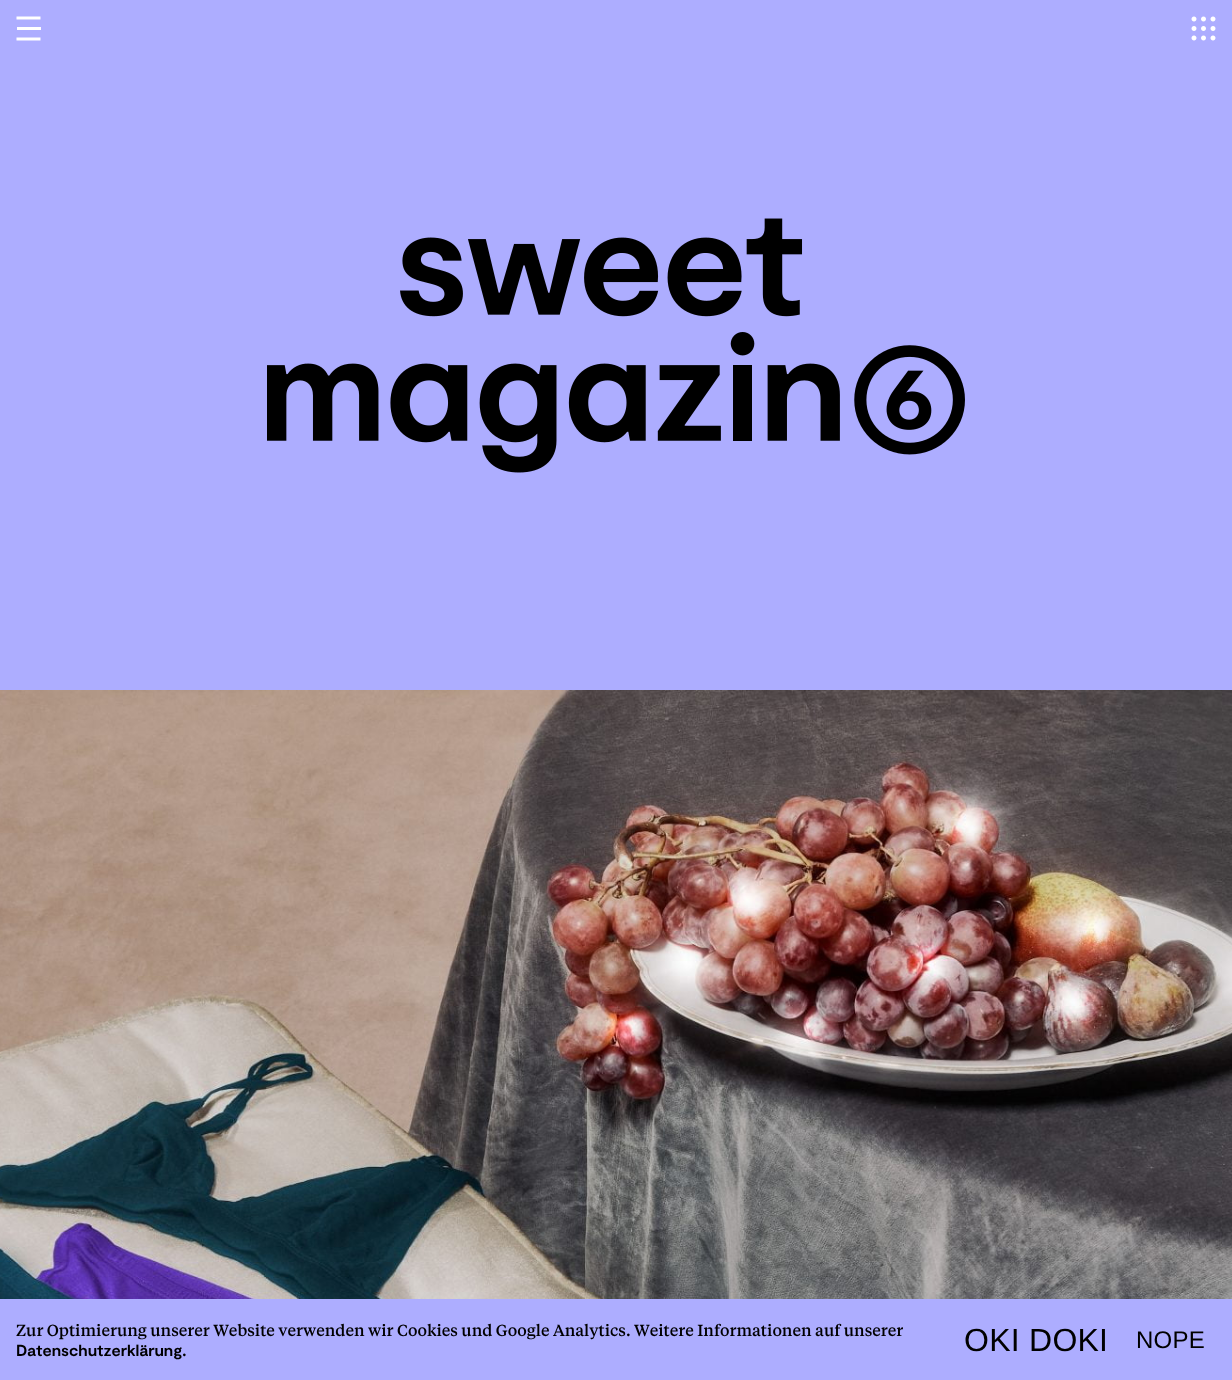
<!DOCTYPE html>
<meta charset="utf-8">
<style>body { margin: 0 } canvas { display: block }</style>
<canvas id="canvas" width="1232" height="1380"></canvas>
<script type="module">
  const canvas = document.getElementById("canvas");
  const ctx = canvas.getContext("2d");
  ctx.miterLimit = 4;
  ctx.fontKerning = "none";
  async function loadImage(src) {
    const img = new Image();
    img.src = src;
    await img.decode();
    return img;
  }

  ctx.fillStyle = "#ffffff";
  ctx.fillRect(0, 0, 1232, 1380);
  ctx.fillStyle = "#adadff";
  ctx.fillRect(0, 0, 1232, 690);
  ctx.drawImage(await loadImage("img1.png"), 267, 218, 698, 255);
  ctx.beginPath();
  ctx.moveTo(16.5, 18);
  ctx.lineTo(40.5, 18);
  ctx.moveTo(16.5, 39);
  ctx.lineTo(40.5, 39);
  ctx.strokeStyle = "#ffffff";
  ctx.lineWidth = 3;
  ctx.stroke();
  ctx.fillStyle = "#ffffff";
  ctx.fillRect(17, 27, 24, 3);
  ctx.drawImage(await loadImage("img2.png"), 1191, 16, 25, 25);
  ctx.drawImage(await loadImage("img3.png"), 0, 690, 1232, 609);
  ctx.fillStyle = "#adadff";
  ctx.fillRect(0, 1299, 1232, 81);
  ctx.font = "500 16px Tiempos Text";
  ctx.fillStyle = "#000000";
  ctx.fillText("Zur Optimierung unserer Website verwenden wir Cookies und Google Analytics. Weitere Informationen auf unserer", 16, 1336);
  ctx.font = "bold 16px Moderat";
  ctx.fillText("Datenschutzerklärung", 16, 1356);
  ctx.font = "500 16px Tiempos Text";
  ctx.fillText(".", 182, 1356);
  ctx.letterSpacing = "0.25px";
  ctx.font = "32px Liberation Sans";
  ctx.fillText("OKI DOKI", 964, 1351);
  ctx.font = "24px Liberation Sans";
  ctx.fillText("NOPE", 1136, 1348);
</script>
